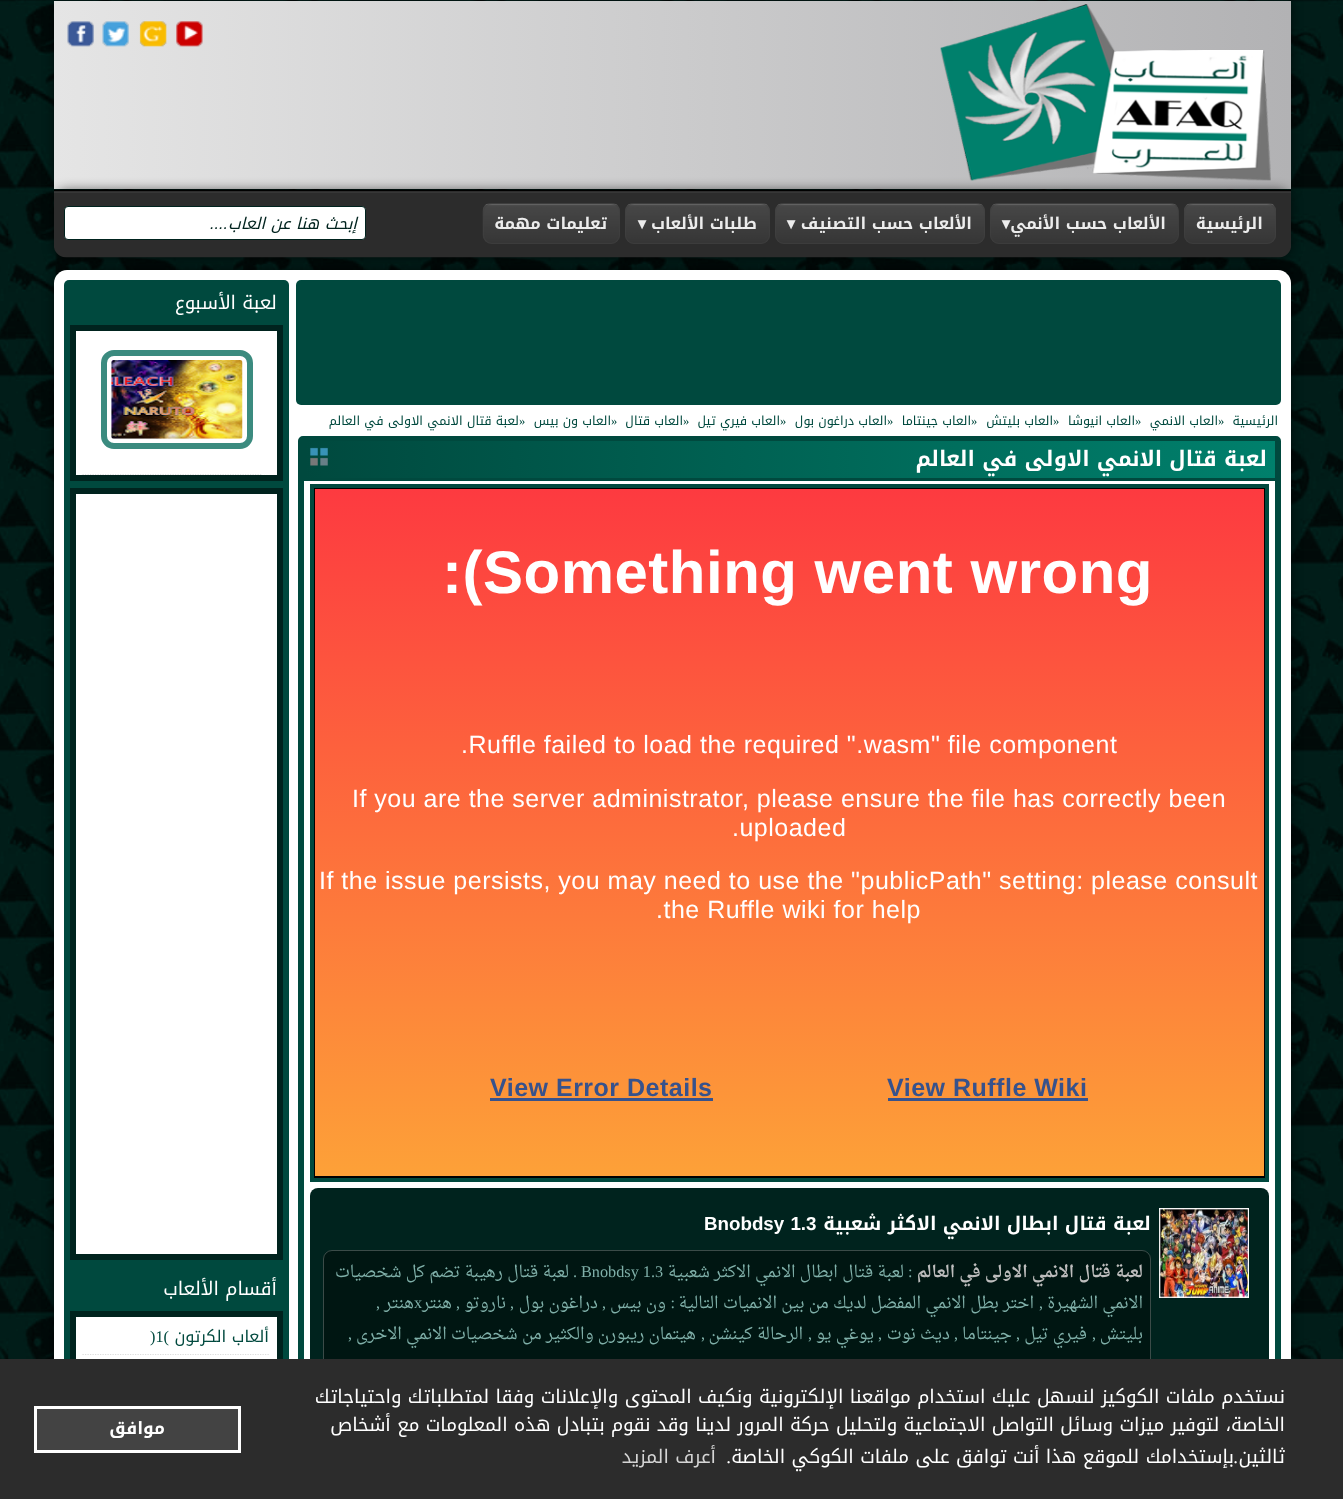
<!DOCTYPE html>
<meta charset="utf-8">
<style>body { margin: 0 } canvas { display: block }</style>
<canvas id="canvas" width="1343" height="1499"></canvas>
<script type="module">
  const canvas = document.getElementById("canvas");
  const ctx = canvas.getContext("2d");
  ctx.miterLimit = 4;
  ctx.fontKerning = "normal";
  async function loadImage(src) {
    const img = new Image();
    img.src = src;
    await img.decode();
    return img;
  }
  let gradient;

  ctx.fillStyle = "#ffffff";
  ctx.fillRect(0, 0, 1343, 1499);
  ctx.drawImage(await loadImage("img1.png"), 0, 0, 1343, 1359);
  ctx.fillStyle = "rgba(0, 0, 0, 0.58)";
  ctx.filter = "blur(6px)";
  ctx.beginPath();
  ctx.rect(54, 1, 1237, 188);
  ctx.fill();
  ctx.filter = "none";
  gradient = ctx.createLinearGradient(54, 1.2, 1291, 1.2);
  gradient.addColorStop(0, "#e5e5e5");
  gradient.addColorStop(1, "#b2b2b4");
  ctx.fillStyle = gradient;
  ctx.fillRect(54, 1, 1237, 188);
  ctx.fillStyle = "rgba(0, 0, 0, 0.58)";
  ctx.filter = "blur(6px)";
  ctx.beginPath();
  ctx.roundRect(54, 190, 1237, 68, 13);
  ctx.fill();
  ctx.filter = "none";
  ctx.drawImage(await loadImage("img2.png"), 940, 4, 331, 177);
  ctx.drawImage(await loadImage("img3.png"), 176, 21, 27, 26);
  ctx.drawImage(await loadImage("img4.png"), 139, 21, 28, 26);
  ctx.drawImage(await loadImage("img5.png"), 102, 21, 27, 26);
  ctx.drawImage(await loadImage("img6.png"), 67, 21, 27, 26);
  ctx.drawImage(await loadImage("img7.png"), 54, 190, 1237, 68);
  ctx.drawImage(await loadImage("img8.png"), 1184, 203, 92, 41);
  ctx.beginPath();
  ctx.roundRect(1184.5, 203.5, 91, 40, 8.5);
  ctx.strokeStyle = "rgba(65, 65, 65, 0.73)";
  ctx.stroke();
  ctx.direction = "rtl";
  ctx.font = "bold 16.25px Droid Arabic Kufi";
  ctx.fillStyle = "#ececec";
  ctx.fillText("الرئيسية", 1263, 229);
  ctx.drawImage(await loadImage("img9.png"), 990, 203, 189, 41);
  ctx.beginPath();
  ctx.roundRect(990.5, 203.5, 188, 40, 8.5);
  ctx.stroke();
  ctx.fillText("الألعاب حسب الأنمي", 1166, 229);
  ctx.font = "bold 16.25px DejaVu Sans";
  ctx.fillText("▾", 1010, 229);
  ctx.drawImage(await loadImage("img10.png"), 775, 203, 210, 41);
  ctx.beginPath();
  ctx.roundRect(775.5, 203.5, 209, 40, 8.5);
  ctx.stroke();
  ctx.font = "bold 16.25px Droid Arabic Kufi";
  ctx.fillText("الألعاب حسب التصنيف", 972, 229);
  ctx.font = "bold 16.25px DejaVu Sans";
  ctx.fillText("▾", 795, 229);
  ctx.drawImage(await loadImage("img11.png"), 625, 203, 145, 41);
  ctx.beginPath();
  ctx.roundRect(625.5, 203.5, 144, 40, 8.5);
  ctx.stroke();
  ctx.font = "bold 16.25px Droid Arabic Kufi";
  ctx.fillText("طلبات الألعاب", 757, 229);
  ctx.font = "bold 16.25px DejaVu Sans";
  ctx.fillText("▾", 646, 229);
  ctx.drawImage(await loadImage("img12.png"), 482, 203, 138, 41);
  ctx.beginPath();
  ctx.roundRect(483.5, 203.5, 136, 40, 8.5);
  ctx.stroke();
  ctx.font = "bold 16.25px Droid Arabic Kufi";
  ctx.fillText("تعليمات مهمة", 607, 229);
  ctx.fillStyle = "#ffffff";
  ctx.beginPath();
  ctx.roundRect(64.5, 206.5, 301, 33, 3.5);
  ctx.fill();
  ctx.strokeStyle = "#00231e";
  ctx.stroke();
  ctx.font = "italic 16.25px Droid Arabic Kufi";
  ctx.fillStyle = "#00231e";
  ctx.fillText("إبحث هنا عن العاب", 357, 229);
  ctx.font = "italic 16.25px Liberation Sans";
  ctx.fillText("....", 228, 229);
  ctx.fillStyle = "rgba(0, 0, 0, 0.58)";
  ctx.filter = "blur(6px)";
  ctx.beginPath();
  ctx.roundRect(54, 270, 1237, 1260, 13);
  ctx.fill();
  ctx.filter = "none";
  ctx.fillStyle = "#ffffff";
  ctx.beginPath();
  ctx.moveTo(67, 270);
  ctx.lineTo(1278, 270);
  ctx.bezierCurveTo(1285, 270, 1291, 276, 1291, 283);
  ctx.lineTo(1291, 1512);
  ctx.lineTo(54, 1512);
  ctx.lineTo(54, 283);
  ctx.bezierCurveTo(54, 276, 60, 270, 67, 270);
  ctx.closePath();
  ctx.fill();
  ctx.fillStyle = "#00493e";
  ctx.beginPath();
  ctx.roundRect(296, 280, 985, 125, 5);
  ctx.fill();
  ctx.font = "12.5px Droid Arabic Kufi";
  ctx.fillText("الرئيسية", 1278, 425);
  ctx.direction = "ltr";
  ctx.font = "12.5px Liberation Serif";
  ctx.fillText("»", 1218, 425);
  ctx.direction = "rtl";
  ctx.font = "12.5px Droid Arabic Kufi";
  ctx.fillText("العاب الانمي", 1218, 425);
  ctx.direction = "ltr";
  ctx.font = "12.5px Liberation Serif";
  ctx.fillText("»", 1135, 425);
  ctx.direction = "rtl";
  ctx.font = "12.5px Droid Arabic Kufi";
  ctx.fillText("العاب انيوشا", 1135, 425);
  ctx.direction = "ltr";
  ctx.font = "12.5px Liberation Serif";
  ctx.fillText("»", 1053, 425);
  ctx.direction = "rtl";
  ctx.font = "12.5px Droid Arabic Kufi";
  ctx.fillText("العاب بليتش", 1053, 425);
  ctx.direction = "ltr";
  ctx.font = "12.5px Liberation Serif";
  ctx.fillText("»", 971, 425);
  ctx.direction = "rtl";
  ctx.font = "12.5px Droid Arabic Kufi";
  ctx.fillText("العاب جينتاما", 971, 425);
  ctx.direction = "ltr";
  ctx.font = "12.5px Liberation Serif";
  ctx.fillText("»", 887, 425);
  ctx.direction = "rtl";
  ctx.font = "12.5px Droid Arabic Kufi";
  ctx.fillText("العاب دراغون بول", 887, 425);
  ctx.direction = "ltr";
  ctx.font = "12.5px Liberation Serif";
  ctx.fillText("»", 780, 425);
  ctx.direction = "rtl";
  ctx.font = "12.5px Droid Arabic Kufi";
  ctx.fillText("العاب فيري تيل", 780, 425);
  ctx.direction = "ltr";
  ctx.font = "12.5px Liberation Serif";
  ctx.fillText("»", 683, 425);
  ctx.direction = "rtl";
  ctx.font = "12.5px Droid Arabic Kufi";
  ctx.fillText("العاب قتال", 683, 425);
  ctx.direction = "ltr";
  ctx.font = "12.5px Liberation Serif";
  ctx.fillText("»", 611, 425);
  ctx.direction = "rtl";
  ctx.font = "12.5px Droid Arabic Kufi";
  ctx.fillText("العاب ون بيس", 611, 425);
  ctx.direction = "ltr";
  ctx.font = "12.5px Liberation Serif";
  ctx.fillText("»", 519, 425);
  ctx.direction = "rtl";
  ctx.font = "12.5px Droid Arabic Kufi";
  ctx.fillText("لعبة قتال الانمي الاولى في العالم", 519, 425);
  ctx.beginPath();
  ctx.roundRect(301, 439, 977, 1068, 2);
  ctx.strokeStyle = "#00493e";
  ctx.lineWidth = 6;
  ctx.stroke();
  gradient = ctx.createLinearGradient(304, 441, 1275, 441);
  gradient.addColorStop(0, "#00493e");
  gradient.addColorStop(1, "#00806c");
  ctx.fillStyle = gradient;
  ctx.fillRect(304, 441, 971, 37);
  ctx.fillStyle = "#00493e";
  ctx.fillRect(304, 478, 971, 3);
  ctx.font = "bold 21.25px Droid Arabic Kufi";
  ctx.fillStyle = "#ffffff";
  ctx.fillText("لعبة قتال الانمي الاولى في العالم", 1267, 466);
  ctx.drawImage(await loadImage("img13.png"), 310, 447, 18, 19);
  ctx.fillStyle = "#000000";
  ctx.fillRect(314, 488, 951, 690);
  ctx.fillStyle = "#00493e";
  ctx.fillRect(310, 484, 959, 4);
  ctx.fillRect(1265, 484, 4, 697);
  ctx.fillRect(310, 1178, 959, 4);
  ctx.fillRect(310, 484, 4, 697);
  gradient = ctx.createLinearGradient(789, 489, 789, 1176);
  gradient.addColorStop(0, "#fd3a40");
  gradient.addColorStop(1, "#fda138");
  ctx.fillStyle = gradient;
  ctx.fillRect(315, 489, 949, 687);
  ctx.letterSpacing = "0.5px";
  ctx.direction = "ltr";
  ctx.font = "bold 60px Liberation Sans";
  ctx.fillStyle = "#ffffff";
  ctx.fillText(":(Something went wrong", 442, 593);
  ctx.font = "25px Liberation Sans";
  ctx.fillText(".Ruffle failed to load the required \".wasm\" file component", 461, 753);
  ctx.fillText("If you are the server administrator, please ensure the file has correctly been", 352, 807);
  ctx.fillText(".uploaded", 732, 836);
  ctx.fillText("If the issue persists, you may need to use the \"publicPath\" setting: please consult", 319, 889);
  ctx.fillText(".the Ruffle wiki for help", 656, 918);
  ctx.font = "bold 25px Liberation Sans";
  ctx.fillStyle = "#37528c";
  ctx.fillText("View Ruffle Wiki", 887, 1096);
  ctx.fillRect(888, 1098, 200, 3);
  ctx.fillText("View Error Details", 490, 1096);
  ctx.fillRect(490, 1098, 223, 3);
  ctx.fillStyle = "#00231e";
  ctx.beginPath();
  ctx.roundRect(310, 1188, 959, 240, 8);
  ctx.fill();
  ctx.fillStyle = "#ffffff";
  ctx.fillRect(1159, 1208, 90, 90);
  ctx.drawImage(await loadImage("img14.png"), 1159, 1208, 89, 90);
  ctx.letterSpacing = "0px";
  ctx.direction = "rtl";
  ctx.font = "bold 18.75px Droid Arabic Kufi";
  ctx.fillText("لعبة قتال ابطال الانمي الاكثر شعبية", 1151, 1230);
  ctx.wordSpacing = "1px";
  ctx.direction = "ltr";
  ctx.font = "bold 18.75px Liberation Sans";
  ctx.fillText("Bnobdsy 1.3", 704, 1230);
  ctx.fillStyle = "#001612";
  ctx.beginPath();
  ctx.roundRect(323, 1250, 828, 165, 9);
  ctx.fill();
  ctx.beginPath();
  ctx.roundRect(323.5, 1250.5, 827, 164, 8.5);
  ctx.strokeStyle = "rgba(255, 255, 255, 0.23)";
  ctx.lineWidth = 1;
  ctx.stroke();
  ctx.wordSpacing = "0px";
  ctx.direction = "rtl";
  ctx.font = "bold 16.25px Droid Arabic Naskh";
  ctx.fillStyle = "#bdbdbd";
  ctx.fillText("لعبة قتال الانمي الاولى في العالم", 1143, 1277);
  ctx.direction = "ltr";
  ctx.font = "16.25px Liberation Serif";
  ctx.fillStyle = "#7fb0a9";
  ctx.fillText(":", 908, 1277);
  ctx.direction = "rtl";
  ctx.font = "16.25px Droid Arabic Naskh";
  ctx.fillText("لعبة قتال ابطال الانمي الاكثر شعبية", 904, 1277);
  ctx.direction = "ltr";
  ctx.font = "16.25px Liberation Serif";
  ctx.fillText("Bnobdsy 1.3", 581, 1277);
  ctx.direction = "rtl";
  ctx.fillText(".", 577, 1277);
  ctx.font = "16.25px Droid Arabic Naskh";
  ctx.fillText("لعبة قتال رهيبة تضم كل شخصيات", 569, 1277);
  ctx.fillText("الانمي الشهيرة", 1143, 1308);
  ctx.font = "16.25px Liberation Serif";
  ctx.fillText(",", 1043, 1308);
  ctx.font = "16.25px Droid Arabic Naskh";
  ctx.fillText("اختر بطل الانمي المفضل لديك من بين الانميات التالية", 1034, 1308);
  ctx.font = "16.25px Liberation Serif";
  ctx.fillText(":", 675, 1308);
  ctx.font = "16.25px Droid Arabic Naskh";
  ctx.fillText("ون بيس", 666, 1308);
  ctx.font = "16.25px Liberation Serif";
  ctx.fillText(",", 606, 1308);
  ctx.font = "16.25px Droid Arabic Naskh";
  ctx.fillText("دراغون بول", 598, 1308);
  ctx.font = "16.25px Liberation Serif";
  ctx.fillText(",", 514, 1308);
  ctx.font = "16.25px Droid Arabic Naskh";
  ctx.fillText("ناروتو", 506, 1308);
  ctx.font = "16.25px Liberation Serif";
  ctx.fillText(",", 460, 1308);
  ctx.direction = "ltr";
  ctx.fillText("x", 414, 1308);
  ctx.direction = "rtl";
  ctx.font = "16.25px Droid Arabic Naskh";
  ctx.fillText("هنتر", 452, 1308);
  ctx.fillText("هنتر", 414, 1308);
  ctx.font = "16.25px Liberation Serif";
  ctx.fillText(",", 380, 1308);
  ctx.font = "16.25px Droid Arabic Naskh";
  ctx.fillText("بليتش", 1143, 1339);
  ctx.font = "16.25px Liberation Serif";
  ctx.fillText(",", 1096, 1339);
  ctx.font = "16.25px Droid Arabic Naskh";
  ctx.fillText("فيري تيل", 1087, 1339);
  ctx.font = "16.25px Liberation Serif";
  ctx.fillText(",", 1020, 1339);
  ctx.font = "16.25px Droid Arabic Naskh";
  ctx.fillText("جينتاما", 1012, 1339);
  ctx.font = "16.25px Liberation Serif";
  ctx.fillText(",", 958, 1339);
  ctx.font = "16.25px Droid Arabic Naskh";
  ctx.fillText("ديث نوت", 950, 1339);
  ctx.font = "16.25px Liberation Serif";
  ctx.fillText(",", 882, 1339);
  ctx.font = "16.25px Droid Arabic Naskh";
  ctx.fillText("يوغي يو", 874, 1339);
  ctx.font = "16.25px Liberation Serif";
  ctx.fillText(",", 812, 1339);
  ctx.font = "16.25px Droid Arabic Naskh";
  ctx.fillText("الرحالة كينشن", 803, 1339);
  ctx.font = "16.25px Liberation Serif";
  ctx.fillText(",", 705, 1339);
  ctx.font = "16.25px Droid Arabic Naskh";
  ctx.fillText("هيتمان ريبورن والكثير من شخصيات الانمي الاخرى", 696, 1339);
  ctx.font = "16.25px Liberation Serif";
  ctx.fillText(",", 352, 1339);
  ctx.fillStyle = "#00493e";
  ctx.beginPath();
  ctx.roundRect(64, 280, 225, 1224, 5);
  ctx.fill();
  ctx.font = "18.75px Droid Arabic Kufi";
  ctx.fillStyle = "#ffffff";
  ctx.fillText("لعبة الأسبوع", 277, 309);
  ctx.beginPath();
  ctx.rect(73, 328, 207, 150);
  ctx.fill();
  ctx.strokeStyle = "#00231e";
  ctx.lineWidth = 6;
  ctx.stroke();
  ctx.beginPath();
  ctx.moveTo(82.5, 474.5);
  ctx.lineTo(262.5, 474.5);
  ctx.strokeStyle = "#dddddd";
  ctx.lineWidth = 1.2;
  ctx.setLineDash([1.25, 1.25]);
  ctx.stroke();
  ctx.beginPath();
  ctx.roundRect(104, 353, 146, 93, 10);
  ctx.strokeStyle = "#3b8b7f";
  ctx.lineWidth = 6;
  ctx.setLineDash([]);
  ctx.stroke();
  ctx.drawImage(await loadImage("img15.png"), 111, 360, 132, 79);
  ctx.beginPath();
  ctx.rect(73, 491, 207, 766);
  ctx.fill();
  ctx.strokeStyle = "#00231e";
  ctx.stroke();
  ctx.fillText("أقسام الألعاب", 277, 1295);
  ctx.fillRect(76, 1317, 201, 42);
  ctx.strokeRect(73, 1314, 207, 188);
  ctx.beginPath();
  ctx.moveTo(82.5, 1354.5);
  ctx.lineTo(270, 1354.5);
  ctx.strokeStyle = "#dddddd";
  ctx.lineWidth = 1.2;
  ctx.setLineDash([1.25, 1.25]);
  ctx.stroke();
  ctx.font = "16.25px Droid Arabic Kufi";
  ctx.fillStyle = "#00493e";
  ctx.fillText("ألعاب الكرتون", 269, 1342);
  ctx.direction = "ltr";
  ctx.font = "16.25px Liberation Serif";
  ctx.fillText(")1(", 150, 1342);
  ctx.fillStyle = "#2c2c2c";
  ctx.fillRect(0, 1359, 1343, 140);
  ctx.direction = "rtl";
  ctx.font = "18.75px Droid Arabic Kufi";
  ctx.fillStyle = "#ffffff";
  ctx.fillText("نستخدم ملفات الكوكيز لنسهل عليك استخدام مواقعنا الإلكترونية ونكيف المحتوى والإعلانات وفقا لمتطلباتك واحتياجاتك", 1285, 1403);
  ctx.fillText("الخاصة، لتوفير ميزات وسائل التواصل الاجتماعية ولتحليل حركة المرور لدينا وقد نقوم بتبادل هذه المعلومات مع أشخاص", 1285, 1431);
  ctx.fillText("ثالثين", 1285, 1463);
  ctx.font = "18.75px Liberation Serif";
  ctx.fillText(".", 1238, 1463);
  ctx.font = "18.75px Droid Arabic Kufi";
  ctx.fillText("بإستخدامك للموقع هذا أنت توافق على ملفات الكوكي الخاصة", 1234, 1463);
  ctx.font = "18.75px Liberation Serif";
  ctx.fillText(".", 731, 1463);
  ctx.font = "18.75px Droid Arabic Kufi";
  ctx.fillStyle = "#d5d5d5";
  ctx.fillText("أعرف المزيد", 716, 1463);
  ctx.fillStyle = "#434343";
  ctx.beginPath();
  ctx.rect(35.5, 1407.5, 204, 44);
  ctx.fill();
  ctx.strokeStyle = "#ffffff";
  ctx.lineWidth = 3;
  ctx.setLineDash([]);
  ctx.stroke();
  ctx.font = "bold 17px Droid Arabic Kufi";
  ctx.fillStyle = "#ffffff";
  ctx.fillText("موافق", 165, 1434);
</script>
